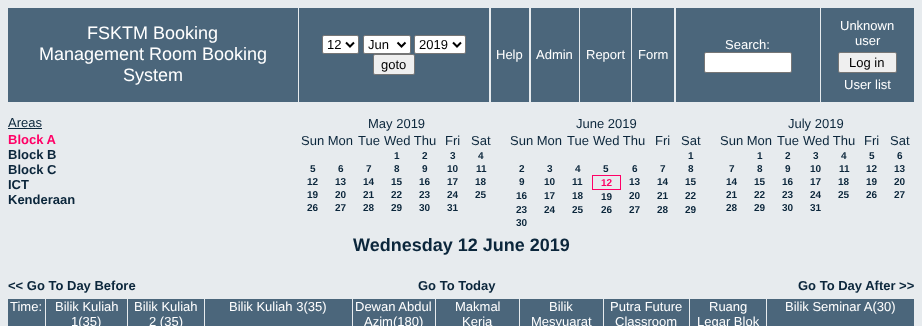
<!DOCTYPE html>
<meta charset="utf-8">
<style>body { margin: 0 } canvas { display: block }</style>
<canvas id="canvas" width="922" height="326"></canvas>
<script type="module">
  const canvas = document.getElementById("canvas");
  const ctx = canvas.getContext("2d");
  ctx.miterLimit = 4;
  ctx.fontKerning = "normal";

  ctx.fillStyle = "#e7ebee";
  ctx.fillRect(0, 0, 922, 326);
  ctx.fillStyle = "#4b667b";
  ctx.fillRect(8, 8, 290, 94);
  ctx.font = "18px Liberation Sans";
  ctx.fillStyle = "#ffffff";
  ctx.fillText("FSKTM Booking", 87, 39);
  ctx.fillText("Management Room Booking", 39, 60);
  ctx.fillText("System", 123, 81);
  ctx.fillStyle = "#4b667b";
  ctx.fillRect(299, 8, 190, 94);
  ctx.fillStyle = "#ffffff";
  ctx.beginPath();
  ctx.roundRect(322.5, 35.5, 36, 18, 1.5);
  ctx.fill();
  ctx.strokeStyle = "#767676";
  ctx.stroke();
  ctx.beginPath();
  ctx.moveTo(346, 42.5);
  ctx.lineTo(350, 46.5);
  ctx.lineTo(354, 42.5);
  ctx.strokeStyle = "#000000";
  ctx.lineWidth = 2;
  ctx.stroke();
  ctx.font = "13px Liberation Sans";
  ctx.fillStyle = "#000000";
  ctx.fillText("12", 327, 49);
  ctx.fillStyle = "#ffffff";
  ctx.beginPath();
  ctx.roundRect(363.5, 35.5, 47, 18, 1.5);
  ctx.fill();
  ctx.strokeStyle = "#767676";
  ctx.lineWidth = 1;
  ctx.stroke();
  ctx.beginPath();
  ctx.moveTo(397.5, 42.5);
  ctx.lineTo(401.5, 46.5);
  ctx.lineTo(405.5, 42.5);
  ctx.strokeStyle = "#000000";
  ctx.lineWidth = 2;
  ctx.stroke();
  ctx.fillStyle = "#000000";
  ctx.fillText("Jun", 368, 49);
  ctx.fillStyle = "#ffffff";
  ctx.beginPath();
  ctx.roundRect(414.5, 35.5, 51, 18, 1.5);
  ctx.fill();
  ctx.strokeStyle = "#767676";
  ctx.lineWidth = 1;
  ctx.stroke();
  ctx.beginPath();
  ctx.moveTo(453, 42.5);
  ctx.lineTo(457, 46.5);
  ctx.lineTo(461, 42.5);
  ctx.strokeStyle = "#000000";
  ctx.lineWidth = 2;
  ctx.stroke();
  ctx.fillStyle = "#000000";
  ctx.fillText("2019", 419, 49);
  ctx.fillStyle = "#efefef";
  ctx.beginPath();
  ctx.roundRect(373.5, 54.5, 41, 20, 1.5);
  ctx.fill();
  ctx.strokeStyle = "#767676";
  ctx.lineWidth = 1;
  ctx.stroke();
  ctx.fillStyle = "#000000";
  ctx.fillText("goto", 381, 69);
  ctx.fillStyle = "#4b667b";
  ctx.fillRect(676, 8, 144, 94);
  ctx.fillStyle = "#ffffff";
  ctx.fillText("Search:", 725, 49);
  ctx.beginPath();
  ctx.roundRect(704.5, 52.5, 87, 20, 1.5);
  ctx.fill();
  ctx.stroke();
  ctx.fillStyle = "#4b667b";
  ctx.fillRect(821, 8, 93, 94);
  ctx.fillStyle = "#ffffff";
  ctx.fillText("Unknown", 840, 30);
  ctx.fillText("user", 855, 45);
  ctx.fillStyle = "#efefef";
  ctx.beginPath();
  ctx.roundRect(838.5, 52.5, 58, 20, 1.5);
  ctx.fill();
  ctx.stroke();
  ctx.fillStyle = "#000000";
  ctx.fillText("Log in", 849, 67);
  ctx.fillStyle = "#ffffff";
  ctx.fillText("User list", 844, 89);
  ctx.fillStyle = "#4b667b";
  ctx.fillRect(491, 8, 38, 94);
  ctx.fillStyle = "#ffffff";
  ctx.fillText("Help", 496, 59);
  ctx.fillStyle = "#4b667b";
  ctx.fillRect(531, 8, 48, 94);
  ctx.fillStyle = "#ffffff";
  ctx.fillText("Admin", 536, 59);
  ctx.fillStyle = "#4b667b";
  ctx.fillRect(580, 8, 51, 94);
  ctx.fillStyle = "#ffffff";
  ctx.fillText("Report", 586, 59);
  ctx.fillStyle = "#4b667b";
  ctx.fillRect(632, 8, 42, 94);
  ctx.fillStyle = "#ffffff";
  ctx.fillText("Form", 638, 59);
  ctx.fillStyle = "#0b263b";
  ctx.fillText("Areas", 8, 127);
  ctx.fillRect(8, 128, 34, 1);
  ctx.font = "bold 13px Liberation Sans";
  ctx.fillStyle = "#ff0066";
  ctx.fillText("Block A", 8, 144);
  ctx.fillStyle = "#0b263b";
  ctx.fillText("Block B", 8, 159);
  ctx.fillText("Block C", 8, 174);
  ctx.fillText("ICT", 8, 189);
  ctx.fillText("Kenderaan", 8, 204);
  ctx.font = "13px Liberation Sans";
  ctx.fillText("May 2019", 368, 128);
  ctx.fillText("Sun Mon", 301, 145);
  ctx.fillText("Tue", 358, 145);
  ctx.fillText("Wed Thu", 384, 145);
  ctx.fillText("Fri", 445, 145);
  ctx.fillText("Sat", 471, 145);
  ctx.font = "bold 10px Liberation Sans";
  ctx.fillText("1", 394, 159);
  ctx.fillText("2", 422, 159);
  ctx.fillText("3", 450, 159);
  ctx.fillText("4", 478, 159);
  ctx.fillText("5", 310, 172);
  ctx.fillText("6", 338, 172);
  ctx.fillText("7", 366, 172);
  ctx.fillText("8", 394, 172);
  ctx.fillText("9", 422, 172);
  ctx.fillText("10", 447, 172);
  ctx.fillText("11", 476, 172);
  ctx.fillText("12", 307, 185);
  ctx.fillText("13", 335, 185);
  ctx.fillText("14", 363, 185);
  ctx.fillText("15", 391, 185);
  ctx.fillText("16", 419, 185);
  ctx.fillText("17", 447, 185);
  ctx.fillText("18", 475, 185);
  ctx.fillText("19", 307, 198);
  ctx.fillText("20", 335, 198);
  ctx.fillText("21", 363, 198);
  ctx.fillText("22", 391, 198);
  ctx.fillText("23", 419, 198);
  ctx.fillText("24", 447, 198);
  ctx.fillText("25", 475, 198);
  ctx.fillText("26", 307, 211);
  ctx.fillText("27", 335, 211);
  ctx.fillText("28", 363, 211);
  ctx.fillText("29", 391, 211);
  ctx.fillText("30", 419, 211);
  ctx.fillText("31", 447, 211);
  ctx.font = "13px Liberation Sans";
  ctx.fillText("June 2019", 576, 128);
  ctx.fillText("Sun Mon", 510, 145);
  ctx.fillText("Tue", 567, 145);
  ctx.fillText("Wed Thu", 593, 145);
  ctx.fillText("Fri", 655, 145);
  ctx.fillText("Sat", 681, 145);
  ctx.font = "bold 10px Liberation Sans";
  ctx.fillText("1", 688, 159);
  ctx.fillText("2", 519, 172);
  ctx.fillText("3", 547, 172);
  ctx.fillText("4", 575, 172);
  ctx.fillText("5", 603, 172);
  ctx.fillText("6", 632, 172);
  ctx.fillText("7", 660, 172);
  ctx.fillText("8", 688, 172);
  ctx.fillText("9", 519, 185);
  ctx.fillText("10", 544, 185);
  ctx.fillText("11", 572, 185);
  ctx.fillStyle = "#ff0066";
  ctx.fillRect(592, 175, 29, 1);
  ctx.fillRect(620, 175, 1, 15);
  ctx.fillRect(592, 189, 29, 1);
  ctx.fillRect(592, 175, 1, 15);
  ctx.fillText("12", 601, 186);
  ctx.fillStyle = "#0b263b";
  ctx.fillText("13", 629, 185);
  ctx.fillText("14", 657, 185);
  ctx.fillText("15", 685, 185);
  ctx.fillText("16", 516, 199);
  ctx.fillText("17", 544, 199);
  ctx.fillText("18", 572, 199);
  ctx.fillText("19", 601, 200);
  ctx.fillText("20", 629, 199);
  ctx.fillText("21", 657, 199);
  ctx.fillText("22", 685, 199);
  ctx.fillText("23", 516, 213);
  ctx.fillText("24", 544, 213);
  ctx.fillText("25", 572, 213);
  ctx.fillText("26", 601, 213);
  ctx.fillText("27", 629, 213);
  ctx.fillText("28", 657, 213);
  ctx.fillText("29", 685, 213);
  ctx.fillText("30", 516, 226);
  ctx.font = "13px Liberation Sans";
  ctx.fillText("July 2019", 788, 128);
  ctx.fillText("Sun Mon", 720, 145);
  ctx.fillText("Tue", 777, 145);
  ctx.fillText("Wed Thu", 803, 145);
  ctx.fillText("Fri", 864, 145);
  ctx.fillText("Sat", 890, 145);
  ctx.font = "bold 10px Liberation Sans";
  ctx.fillText("1", 757, 159);
  ctx.fillText("2", 785, 159);
  ctx.fillText("3", 813, 159);
  ctx.fillText("4", 841, 159);
  ctx.fillText("5", 869, 159);
  ctx.fillText("6", 897, 159);
  ctx.fillText("7", 729, 172);
  ctx.fillText("8", 757, 172);
  ctx.fillText("9", 785, 172);
  ctx.fillText("10", 810, 172);
  ctx.fillText("11", 839, 172);
  ctx.fillText("12", 866, 172);
  ctx.fillText("13", 894, 172);
  ctx.fillText("14", 726, 185);
  ctx.fillText("15", 754, 185);
  ctx.fillText("16", 782, 185);
  ctx.fillText("17", 810, 185);
  ctx.fillText("18", 838, 185);
  ctx.fillText("19", 866, 185);
  ctx.fillText("20", 894, 185);
  ctx.fillText("21", 726, 198);
  ctx.fillText("22", 754, 198);
  ctx.fillText("23", 782, 198);
  ctx.fillText("24", 810, 198);
  ctx.fillText("25", 838, 198);
  ctx.fillText("26", 866, 198);
  ctx.fillText("27", 894, 198);
  ctx.fillText("28", 726, 211);
  ctx.fillText("29", 754, 211);
  ctx.fillText("30", 782, 211);
  ctx.fillText("31", 810, 211);
  ctx.font = "bold 18px Liberation Sans";
  ctx.fillText("Wednesday 12 June 2019", 353, 251);
  ctx.font = "bold 13px Liberation Sans";
  ctx.fillText("<< Go To Day Before", 8, 290);
  ctx.fillText("Go To Today", 418, 290);
  ctx.fillText("Go To Day After >>", 798, 290);
  ctx.fillStyle = "#4b667b";
  ctx.fillRect(8, 299, 37, 27);
  ctx.font = "13px Liberation Sans";
  ctx.fillStyle = "#ffffff";
  ctx.fillText("Time:", 10, 311);
  ctx.fillStyle = "#4b667b";
  ctx.fillRect(46, 299, 81, 27);
  ctx.fillStyle = "#ffffff";
  ctx.fillText("Bilik Kuliah", 55, 311);
  ctx.fillText("1(35)", 71, 326);
  ctx.fillStyle = "#4b667b";
  ctx.fillRect(128, 299, 76, 27);
  ctx.fillStyle = "#ffffff";
  ctx.fillText("Bilik Kuliah", 134, 311);
  ctx.fillText("2 (35)", 149, 326);
  ctx.fillStyle = "#4b667b";
  ctx.fillRect(205, 299, 147, 27);
  ctx.fillStyle = "#ffffff";
  ctx.fillText("Bilik Kuliah 3(35)", 229, 311);
  ctx.fillStyle = "#4b667b";
  ctx.fillRect(353, 299, 82, 27);
  ctx.fillStyle = "#ffffff";
  ctx.fillText("Dewan Abdul", 355, 311);
  ctx.fillText("Azim(180)", 364, 326);
  ctx.fillStyle = "#4b667b";
  ctx.fillRect(436, 299, 83, 27);
  ctx.fillStyle = "#ffffff";
  ctx.fillText("Makmal", 455, 311);
  ctx.fillText("Kerja", 462, 326);
  ctx.fillStyle = "#4b667b";
  ctx.fillRect(520, 299, 83, 27);
  ctx.fillStyle = "#ffffff";
  ctx.fillText("Bilik", 549, 311);
  ctx.fillText("Mesyuarat", 531, 326);
  ctx.fillStyle = "#4b667b";
  ctx.fillRect(604, 299, 85, 27);
  ctx.fillStyle = "#ffffff";
  ctx.fillText("Putra Future", 610, 311);
  ctx.fillText("Classroom", 615, 326);
  ctx.fillStyle = "#4b667b";
  ctx.fillRect(690, 299, 76, 27);
  ctx.fillStyle = "#ffffff";
  ctx.fillText("Ruang", 709, 311);
  ctx.fillText("Legar Blok", 697, 326);
  ctx.fillStyle = "#4b667b";
  ctx.fillRect(767, 299, 147, 27);
  ctx.fillStyle = "#ffffff";
  ctx.fillText("Bilik Seminar A(30)", 785, 311);
</script>
